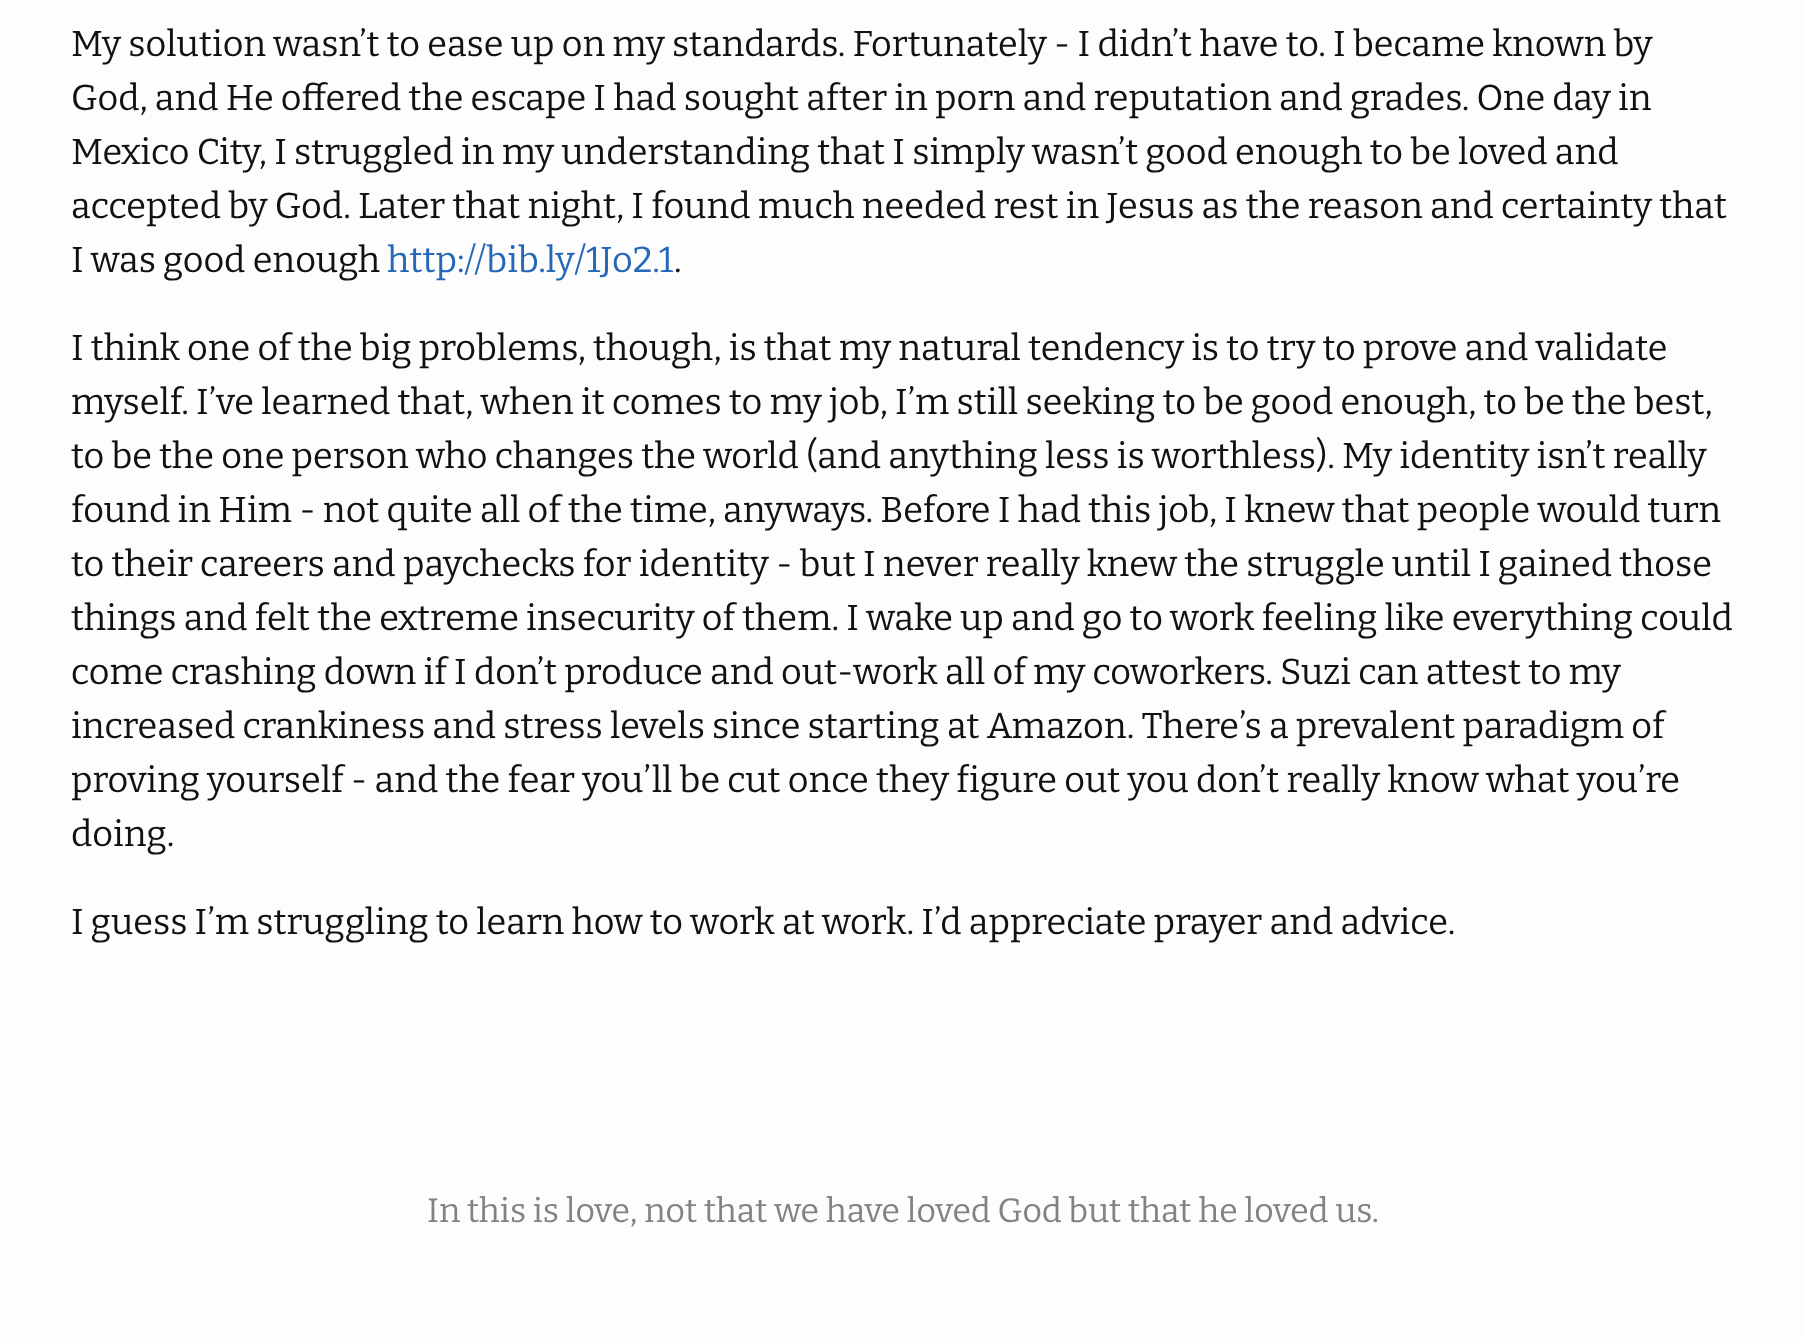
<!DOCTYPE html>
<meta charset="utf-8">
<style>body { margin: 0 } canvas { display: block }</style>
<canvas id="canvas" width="1805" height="1337"></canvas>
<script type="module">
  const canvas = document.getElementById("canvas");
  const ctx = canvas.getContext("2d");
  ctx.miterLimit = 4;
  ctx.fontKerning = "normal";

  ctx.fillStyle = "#fdfdfd";
  ctx.fillRect(0, 0, 1805, 1337);
  ctx.font = "36px Bitter";
  ctx.fillStyle = "#111111";
  ctx.fillText("My solution wasn’t to ease up on my standards. Fortunately - I didn’t have to. I became known by", 71, 56);
  ctx.fillText("God, and He offered the escape I had sought after in porn and reputation and grades. One day in", 71, 110);
  ctx.fillText("Mexico City, I struggled in my understanding that I simply wasn’t good enough to be loved and", 71, 164);
  ctx.fillText("accepted by God. Later that night, I found much needed rest in Jesus as the reason and certainty that", 71, 218);
  ctx.fillText("I was good enough", 71, 272);
  ctx.fillStyle = "#2568ba";
  ctx.fillText("http://bib.ly/1Jo2.1", 387, 272);
  ctx.fillStyle = "#111111";
  ctx.fillText(".", 674, 272);
  ctx.fillText("I think one of the big problems, though, is that my natural tendency is to try to prove and validate", 71, 360);
  ctx.fillText("myself. I’ve learned that, when it comes to my job, I’m still seeking to be good enough, to be the best,", 71, 414);
  ctx.fillText("to be the one person who changes the world (and anything less is worthless). My identity isn’t really", 71, 468);
  ctx.fillText("found in Him - not quite all of the time, anyways. Before I had this job, I knew that people would turn", 71, 522);
  ctx.fillText("to their careers and paychecks for identity - but I never really knew the struggle until I gained those", 71, 576);
  ctx.fillText("things and felt the extreme insecurity of them. I wake up and go to work feeling like everything could", 71, 630);
  ctx.fillText("come crashing down if I don’t produce and out-work all of my coworkers. Suzi can attest to my", 71, 684);
  ctx.fillText("increased crankiness and stress levels since starting at Amazon. There’s a prevalent paradigm of", 71, 738);
  ctx.fillText("proving yourself - and the fear you’ll be cut once they figure out you don’t really know what you’re", 71, 792);
  ctx.fillText("doing.", 71, 846);
  ctx.fillText("I guess I’m struggling to learn how to work at work. I’d appreciate prayer and advice.", 71, 934);
  ctx.font = "33.75px Bitter";
  ctx.fillStyle = "#828282";
  ctx.fillText("In this is love, not that we have loved God but that he loved us.", 427, 1222);
</script>
